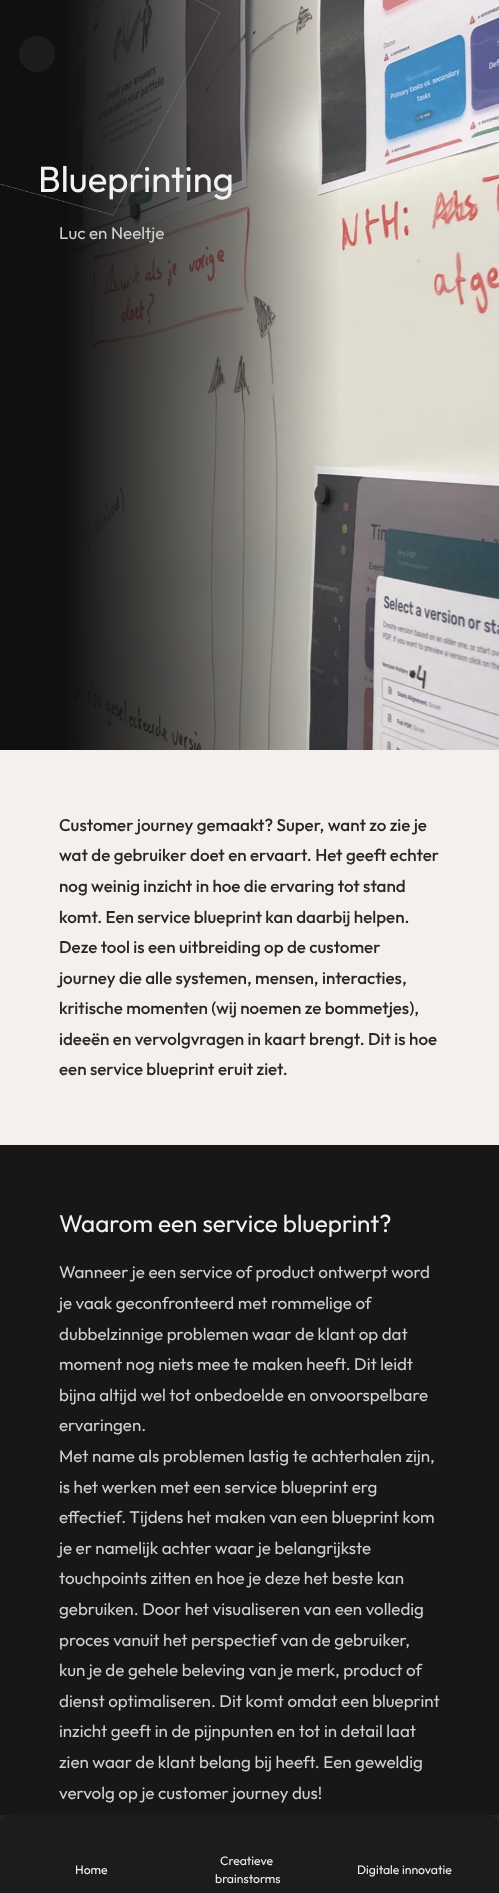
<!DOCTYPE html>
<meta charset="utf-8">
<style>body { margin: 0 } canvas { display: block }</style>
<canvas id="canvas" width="499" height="1893"></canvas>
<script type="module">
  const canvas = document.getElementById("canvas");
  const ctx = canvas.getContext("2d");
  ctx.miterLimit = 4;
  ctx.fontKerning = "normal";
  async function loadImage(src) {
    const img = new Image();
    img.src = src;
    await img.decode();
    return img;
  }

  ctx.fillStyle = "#171717";
  ctx.fillRect(0, 0, 499, 1893);
  ctx.drawImage(await loadImage("img2.png"), 0, 0, 499, 750);
  ctx.fillStyle = "#1e1d1e";
  ctx.beginPath();
  ctx.arc(37, 54, 18, 0, Math.PI * 2);
  ctx.fill();
  ctx.font = "100 36.5px 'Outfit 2'";
  ctx.fillStyle = "#f2f2f2";
  ctx.fillText("Blueprinting", 38, 192);
  ctx.drawImage(await loadImage("img1.png"), 0, 0, 220, 216);
  ctx.font = "100 17px 'Outfit 2'";
  ctx.fillStyle = "#d1d1d1";
  ctx.fillText("Luc en Neeltje", 59, 239);
  ctx.fillStyle = "#f4f0ed";
  ctx.fillRect(0, 750, 499, 395);
  ctx.font = "100 17px Outfit";
  ctx.fillStyle = "#272726";
  ctx.fillText("Customer journey gemaakt? Super, want zo zie je", 59, 831);
  ctx.fillText("wat de gebruiker doet en ervaart. Het geeft echter", 59, 861);
  ctx.fillText("nog weinig inzicht in hoe die ervaring tot stand", 59, 892);
  ctx.fillText("komt. Een service blueprint kan daarbij helpen.", 59, 923);
  ctx.fillText("Deze tool is een uitbreiding op de customer", 59, 953);
  ctx.fillText("journey die alle systemen, mensen, interacties,", 59, 984);
  ctx.fillText("kritische momenten (wij noemen ze bommetjes),", 59, 1014);
  ctx.fillText("ideeën en vervolgvragen in kaart brengt. Dit is hoe", 59, 1045);
  ctx.fillText("een service blueprint eruit ziet.", 59, 1075);
  ctx.font = "100 24.25px 'Outfit 2'";
  ctx.fillStyle = "#f2f2f2";
  ctx.fillText("Waarom een service blueprint?", 59, 1232);
  ctx.font = "100 17px 'Outfit 2'";
  ctx.fillStyle = "#d1d1d1";
  ctx.fillText("Wanneer je een service of product ontwerpt word", 59, 1278);
  ctx.fillText("je vaak geconfronteerd met rommelige of", 59, 1309);
  ctx.fillText("dubbelzinnige problemen waar de klant op dat", 59, 1340);
  ctx.fillText("moment nog niets mee te maken heeft. Dit leidt", 59, 1370);
  ctx.fillText("bijna altijd wel tot onbedoelde en onvoorspelbare", 59, 1401);
  ctx.fillText("ervaringen.", 59, 1431);
  ctx.fillText("Met name als problemen lastig te achterhalen zijn,", 59, 1462);
  ctx.fillText("is het werken met een service blueprint erg", 59, 1493);
  ctx.fillText("effectief. Tijdens het maken van een blueprint kom", 59, 1523);
  ctx.fillText("je er namelijk achter waar je belangrijkste", 59, 1554);
  ctx.fillText("touchpoints zitten en hoe je deze het beste kan", 59, 1584);
  ctx.fillText("gebruiken. Door het visualiseren van een volledig", 59, 1615);
  ctx.fillText("proces vanuit het perspectief van de gebruiker,", 59, 1646);
  ctx.fillText("kun je de gehele beleving van je merk, product of", 59, 1676);
  ctx.fillText("dienst optimaliseren. Dit komt omdat een blueprint", 59, 1707);
  ctx.fillText("inzicht geeft in de pijnpunten en tot in detail laat", 59, 1737);
  ctx.fillText("zien waar de klant belang bij heeft. Een geweldig", 59, 1768);
  ctx.fillText("vervolg op je customer journey dus!", 59, 1799);
  ctx.fillStyle = "#242324";
  ctx.fillRect(0, 1815, 499, 12);
  ctx.fillStyle = "#1d1c1d";
  ctx.beginPath();
  ctx.roundRect(0, 1815, 499, 78, [12, 12, 0, 0]);
  ctx.fill();
  ctx.font = "100 12.25px 'Outfit 2'";
  ctx.fillStyle = "#f2f2f2";
  ctx.fillText("Home", 75, 1874);
  ctx.fillText("Creatieve", 220, 1865);
  ctx.fillText("brainstorms", 215, 1883);
  ctx.fillText("Digitale innovatie", 357, 1874);
</script>
